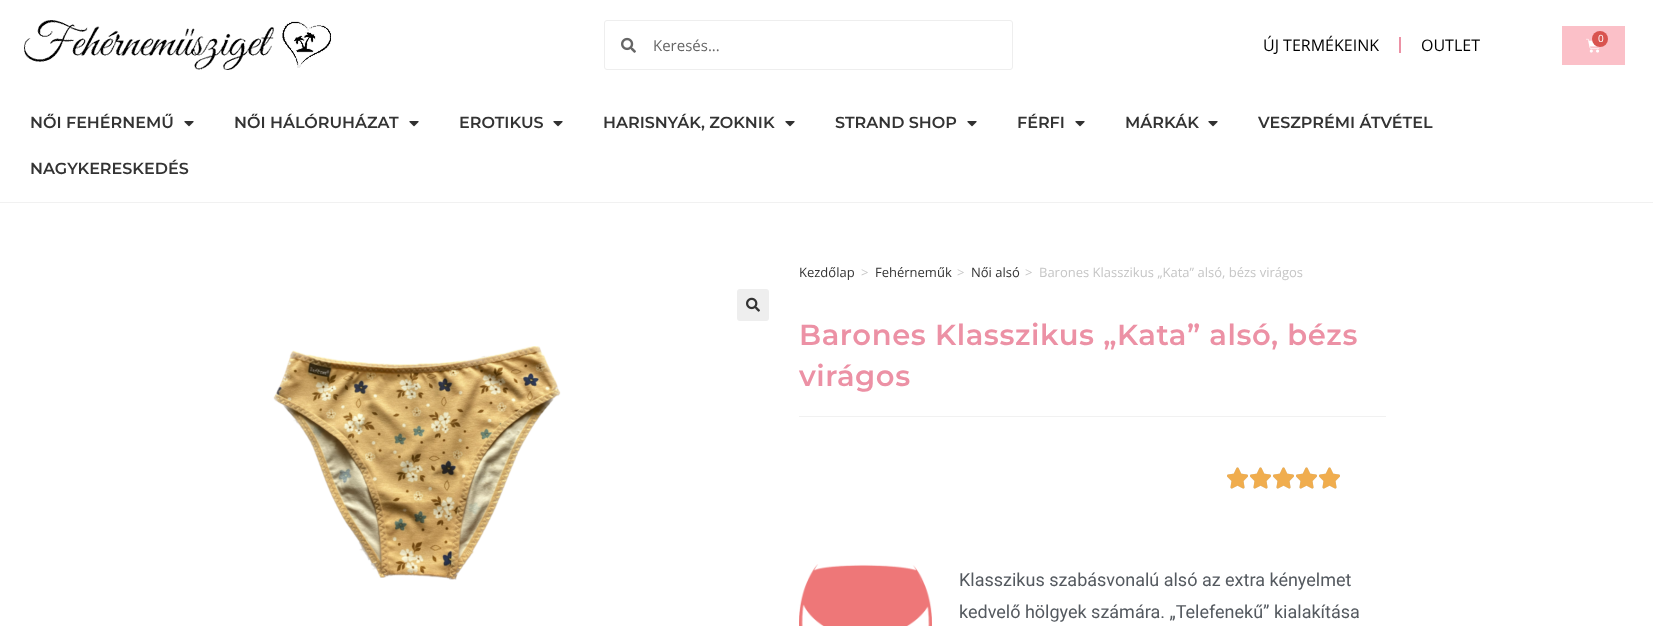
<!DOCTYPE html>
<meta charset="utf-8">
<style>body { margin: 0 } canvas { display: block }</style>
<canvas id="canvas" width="1653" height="626"></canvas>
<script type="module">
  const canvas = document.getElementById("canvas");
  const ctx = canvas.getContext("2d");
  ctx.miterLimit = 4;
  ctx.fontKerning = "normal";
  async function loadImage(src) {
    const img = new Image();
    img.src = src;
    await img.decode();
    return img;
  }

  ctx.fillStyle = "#ffffff";
  ctx.fillRect(0, 0, 1653, 626);
  ctx.fillStyle = "#f1f1f1";
  ctx.fillRect(0, 202, 1653, 1);
  ctx.drawImage(await loadImage("img1.png"), 24, 20, 307, 50);
  ctx.beginPath();
  ctx.roundRect(604.5, 20.5, 408, 49, 2.5);
  ctx.strokeStyle = "#eeeeee";
  ctx.stroke();
  ctx.drawImage(await loadImage("img2.png"), 621, 37, 15, 16);
  ctx.font = "15px Open Sans";
  ctx.fillStyle = "#666666";
  ctx.fillText("Keresés...", 653, 51);
  ctx.font = "16px Open Sans";
  ctx.fillStyle = "#000000";
  ctx.fillText("ÚJ TERMÉKEINK", 1263, 51);
  ctx.fillStyle = "#ec91a5";
  ctx.fillRect(1399, 37, 2, 16);
  ctx.fillStyle = "#000000";
  ctx.fillText("OUTLET", 1421, 51);
  ctx.fillStyle = "#fbc0c8";
  ctx.fillRect(1562, 26, 63, 39);
  ctx.drawImage(await loadImage("img3.png"), 1586, 38, 14, 15);
  ctx.fillStyle = "#d9534f";
  ctx.beginPath();
  ctx.arc(1600, 39, 8, 0, Math.PI * 2);
  ctx.fill();
  ctx.font = "10px Open Sans";
  ctx.fillStyle = "#ffffff";
  ctx.fillText("0", 1598, 42);
  ctx.font = "600 16px Montserrat";
  ctx.fillStyle = "#333333";
  ctx.fillText("NŐI FEHÉRNEMŰ", 30, 128);
  ctx.drawImage(await loadImage("img4.png"), 184, 121, 10, 6);
  ctx.fillText("NŐI HÁLÓRUHÁZAT", 234, 128);
  ctx.drawImage(await loadImage("img4.png"), 409, 121, 10, 6);
  ctx.fillText("EROTIKUS", 459, 128);
  ctx.drawImage(await loadImage("img4.png"), 553, 121, 10, 6);
  ctx.fillText("HARISNYÁK, ZOKNIK", 603, 128);
  ctx.drawImage(await loadImage("img4.png"), 785, 121, 10, 6);
  ctx.fillText("STRAND SHOP", 835, 128);
  ctx.drawImage(await loadImage("img4.png"), 967, 121, 10, 6);
  ctx.fillText("FÉRFI", 1017, 128);
  ctx.drawImage(await loadImage("img4.png"), 1075, 121, 10, 6);
  ctx.fillText("MÁRKÁK", 1125, 128);
  ctx.drawImage(await loadImage("img4.png"), 1208, 121, 10, 6);
  ctx.fillText("VESZPRÉMI ÁTVÉTEL", 1258, 128);
  ctx.fillText("NAGYKERESKEDÉS", 30, 174);
  ctx.fillStyle = "#eeeeee";
  ctx.beginPath();
  ctx.roundRect(737, 289, 32, 32, 3);
  ctx.fill();
  ctx.drawImage(await loadImage("img5.png"), 746, 297, 14, 15);
  ctx.drawImage(await loadImage("img6.png"), 273, 346, 288, 234);
  ctx.font = "13px Open Sans";
  ctx.fillStyle = "#333333";
  ctx.fillText("Kezdőlap", 799, 277);
  ctx.fillStyle = "#c6c6c6";
  ctx.fillText(">", 861, 277);
  ctx.fillStyle = "#333333";
  ctx.fillText("Fehérneműk", 875, 277);
  ctx.fillStyle = "#c6c6c6";
  ctx.fillText(">", 957, 277);
  ctx.fillStyle = "#333333";
  ctx.fillText("Női alsó", 971, 277);
  ctx.fillStyle = "#c6c6c6";
  ctx.fillText(">", 1025, 277);
  ctx.fillText("Barones Klasszikus „Kata” alsó, bézs virágos", 1039, 277);
  ctx.fillStyle = "#f1f1f1";
  ctx.fillRect(799, 416, 587, 1);
  ctx.letterSpacing = "0.6px";
  ctx.font = "600 29px Montserrat";
  ctx.fillStyle = "#ec91a5";
  ctx.fillText("Barones Klasszikus „Kata” alsó, bézs", 799, 345);
  ctx.fillText("virágos", 799, 386);
  ctx.drawImage(await loadImage("img7.png"), 1227, 467, 21, 22);
  ctx.drawImage(await loadImage("img8.png"), 1227, 467, 21, 22);
  ctx.drawImage(await loadImage("img7.png"), 1250, 467, 21, 22);
  ctx.drawImage(await loadImage("img8.png"), 1250, 467, 21, 22);
  ctx.drawImage(await loadImage("img7.png"), 1273, 467, 21, 22);
  ctx.drawImage(await loadImage("img8.png"), 1273, 467, 21, 22);
  ctx.drawImage(await loadImage("img7.png"), 1296, 467, 21, 22);
  ctx.drawImage(await loadImage("img8.png"), 1296, 467, 21, 22);
  ctx.drawImage(await loadImage("img7.png"), 1319, 467, 21, 22);
  ctx.drawImage(await loadImage("img8.png"), 1319, 467, 21, 22);
  ctx.drawImage(await loadImage("img9.png"), 799, 564, 133, 62);
  ctx.letterSpacing = "0px";
  ctx.font = "18px Roboto";
  ctx.fillStyle = "#54595f";
  ctx.fillText("Klasszikus szabásvonalú alsó az extra kényelmet", 959, 586);
  ctx.fillText("kedvelő hölgyek számára. „Telefenekű” kialakítása", 959, 618);
</script>
